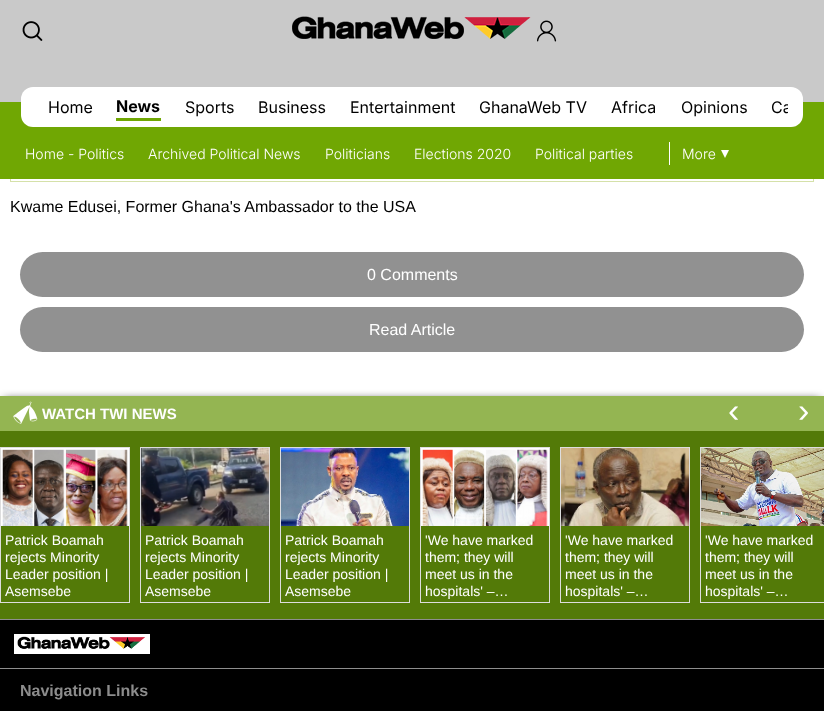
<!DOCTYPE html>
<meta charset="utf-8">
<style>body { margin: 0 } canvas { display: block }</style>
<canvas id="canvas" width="824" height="711"></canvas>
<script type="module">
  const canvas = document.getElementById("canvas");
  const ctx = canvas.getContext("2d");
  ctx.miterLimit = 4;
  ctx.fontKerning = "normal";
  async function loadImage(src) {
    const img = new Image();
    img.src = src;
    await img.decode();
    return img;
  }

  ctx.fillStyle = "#ffffff";
  ctx.fillRect(0, 0, 824, 711);
  ctx.strokeStyle = "#d5e1a9";
  ctx.strokeRect(10.5, -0.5, 803, 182);
  ctx.fillStyle = "#c9c9c9";
  ctx.fillRect(0, 0, 824, 102);
  ctx.drawImage(await loadImage("img1.png"), 22, 21, 21, 20);
  ctx.drawImage(await loadImage("img2.png"), 292, 16, 239, 23);
  ctx.drawImage(await loadImage("img3.png"), 537, 20, 20, 22);
  ctx.fillStyle = "#70a703";
  ctx.fillRect(0, 102, 824, 77);
  ctx.fillStyle = "#ffffff";
  ctx.beginPath();
  ctx.roundRect(21, 87, 782, 40, 12);
  ctx.fill();
  ctx.font = "16px Inter";
  ctx.fillStyle = "#000000";
  ctx.fillText("Home", 48, 113);
  ctx.fillStyle = "#70a703";
  ctx.fillRect(116, 118, 45, 3);
  ctx.font = "bold 16px Inter";
  ctx.fillStyle = "#000000";
  ctx.fillText("News", 116, 112);
  ctx.font = "16px Inter";
  ctx.fillText("Sports", 185, 113);
  ctx.fillText("Business", 258, 113);
  ctx.fillText("Entertainment", 350, 113);
  ctx.fillText("GhanaWeb TV", 479, 113);
  ctx.fillText("Africa", 611, 113);
  ctx.fillText("Opinions", 681, 113);
  ctx.save();
  ctx.beginPath();
  ctx.rect(36, 94, 752, 27);
  ctx.clip();
  ctx.fillText("Ca", 771, 113);
  ctx.restore();
  ctx.font = "300 14px Inter";
  ctx.fillStyle = "#ffffff";
  ctx.fillText("Home - Politics", 25, 159);
  ctx.fillText("Archived Political News", 148, 159);
  ctx.fillText("Politicians", 325, 159);
  ctx.fillText("Elections 2020", 414, 159);
  ctx.fillText("Political parties", 535, 159);
  ctx.fillRect(669, 142, 1, 23);
  ctx.fillText("More", 682, 159);
  ctx.beginPath();
  ctx.moveTo(721, 150);
  ctx.lineTo(729, 150);
  ctx.lineTo(725, 158);
  ctx.closePath();
  ctx.fill();
  ctx.font = "16px Liberation Sans";
  ctx.fillStyle = "#000000";
  ctx.fillText("Kwame Edusei, Former Ghana's Ambassador to the USA", 10, 212);
  ctx.fillStyle = "#919191";
  ctx.beginPath();
  ctx.roundRect(20, 252, 784, 45, 22.5);
  ctx.fill();
  ctx.fillStyle = "#ffffff";
  ctx.fillText("0 Comments", 367, 280);
  ctx.fillStyle = "#919191";
  ctx.beginPath();
  ctx.roundRect(20, 307, 784, 45, 22.5);
  ctx.fill();
  ctx.fillStyle = "#ffffff";
  ctx.fillText("Read Article", 369, 335);
  ctx.fillStyle = "#000000";
  ctx.filter = "blur(5px)";
  ctx.beginPath();
  ctx.rect(4, 400, 816, 27);
  ctx.fill();
  ctx.filter = "none";
  ctx.fillStyle = "#537a08";
  ctx.fillRect(0, 431, 824, 188);
  ctx.fillStyle = "#94b552";
  ctx.fillRect(0, 396, 824, 35);
  ctx.font = "34px Liberation Sans";
  ctx.fillStyle = "#ffffff";
  ctx.fillText("‹", 728, 422);
  ctx.fillText("›", 798, 422);
  ctx.strokeStyle = "#dddddd";
  ctx.strokeRect(0.5, 447.5, 129, 155);
  ctx.drawImage(await loadImage("img4.png"), 1, 448, 128, 78);
  ctx.font = "14px Liberation Sans";
  ctx.fillText("Patrick Boamah", 5, 545);
  ctx.fillText("rejects Minority", 5, 562);
  ctx.fillText("Leader position |", 5, 579);
  ctx.fillText("Asemsebe", 5, 596);
  ctx.strokeRect(140.5, 447.5, 129, 155);
  ctx.drawImage(await loadImage("img5.png"), 141, 448, 128, 78);
  ctx.fillText("Patrick Boamah", 145, 545);
  ctx.fillText("rejects Minority", 145, 562);
  ctx.fillText("Leader position |", 145, 579);
  ctx.fillText("Asemsebe", 145, 596);
  ctx.strokeRect(280.5, 447.5, 129, 155);
  ctx.drawImage(await loadImage("img6.png"), 281, 448, 128, 78);
  ctx.fillText("Patrick Boamah", 285, 545);
  ctx.fillText("rejects Minority", 285, 562);
  ctx.fillText("Leader position |", 285, 579);
  ctx.fillText("Asemsebe", 285, 596);
  ctx.strokeRect(420.5, 447.5, 129, 155);
  ctx.drawImage(await loadImage("img7.png"), 421, 448, 128, 78);
  ctx.fillText("'We have marked", 425, 545);
  ctx.fillText("them; they will", 425, 562);
  ctx.fillText("meet us in the", 425, 579);
  ctx.fillText("hospitals' –…", 425, 596);
  ctx.strokeRect(560.5, 447.5, 129, 155);
  ctx.drawImage(await loadImage("img8.png"), 561, 448, 128, 78);
  ctx.fillText("'We have marked", 565, 545);
  ctx.fillText("them; they will", 565, 562);
  ctx.fillText("meet us in the", 565, 579);
  ctx.fillText("hospitals' –…", 565, 596);
  ctx.strokeRect(700.5, 447.5, 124, 155);
  ctx.drawImage(await loadImage("img9.png"), 701, 448, 123, 78);
  ctx.fillText("'We have marked", 705, 545);
  ctx.fillText("them; they will", 705, 562);
  ctx.fillText("meet us in the", 705, 579);
  ctx.fillText("hospitals' –…", 705, 596);
  ctx.drawImage(await loadImage("img10.png"), 13, 401, 25, 23);
  ctx.font = "bold 15px Liberation Sans";
  ctx.fillText("WATCH TWI NEWS", 42, 419);
  ctx.fillStyle = "#000000";
  ctx.fillRect(0, 620, 824, 91);
  ctx.fillStyle = "#8e8e8e";
  ctx.fillRect(0, 619, 824, 1);
  ctx.fillRect(0, 668, 824, 1);
  ctx.fillStyle = "#ffffff";
  ctx.fillRect(14, 634, 136, 20);
  ctx.drawImage(await loadImage("img11.png"), 17, 636, 128, 13);
  ctx.font = "bold 16px Liberation Sans";
  ctx.fillStyle = "#8c8c8c";
  ctx.fillText("Navigation Links", 20, 696);
</script>
